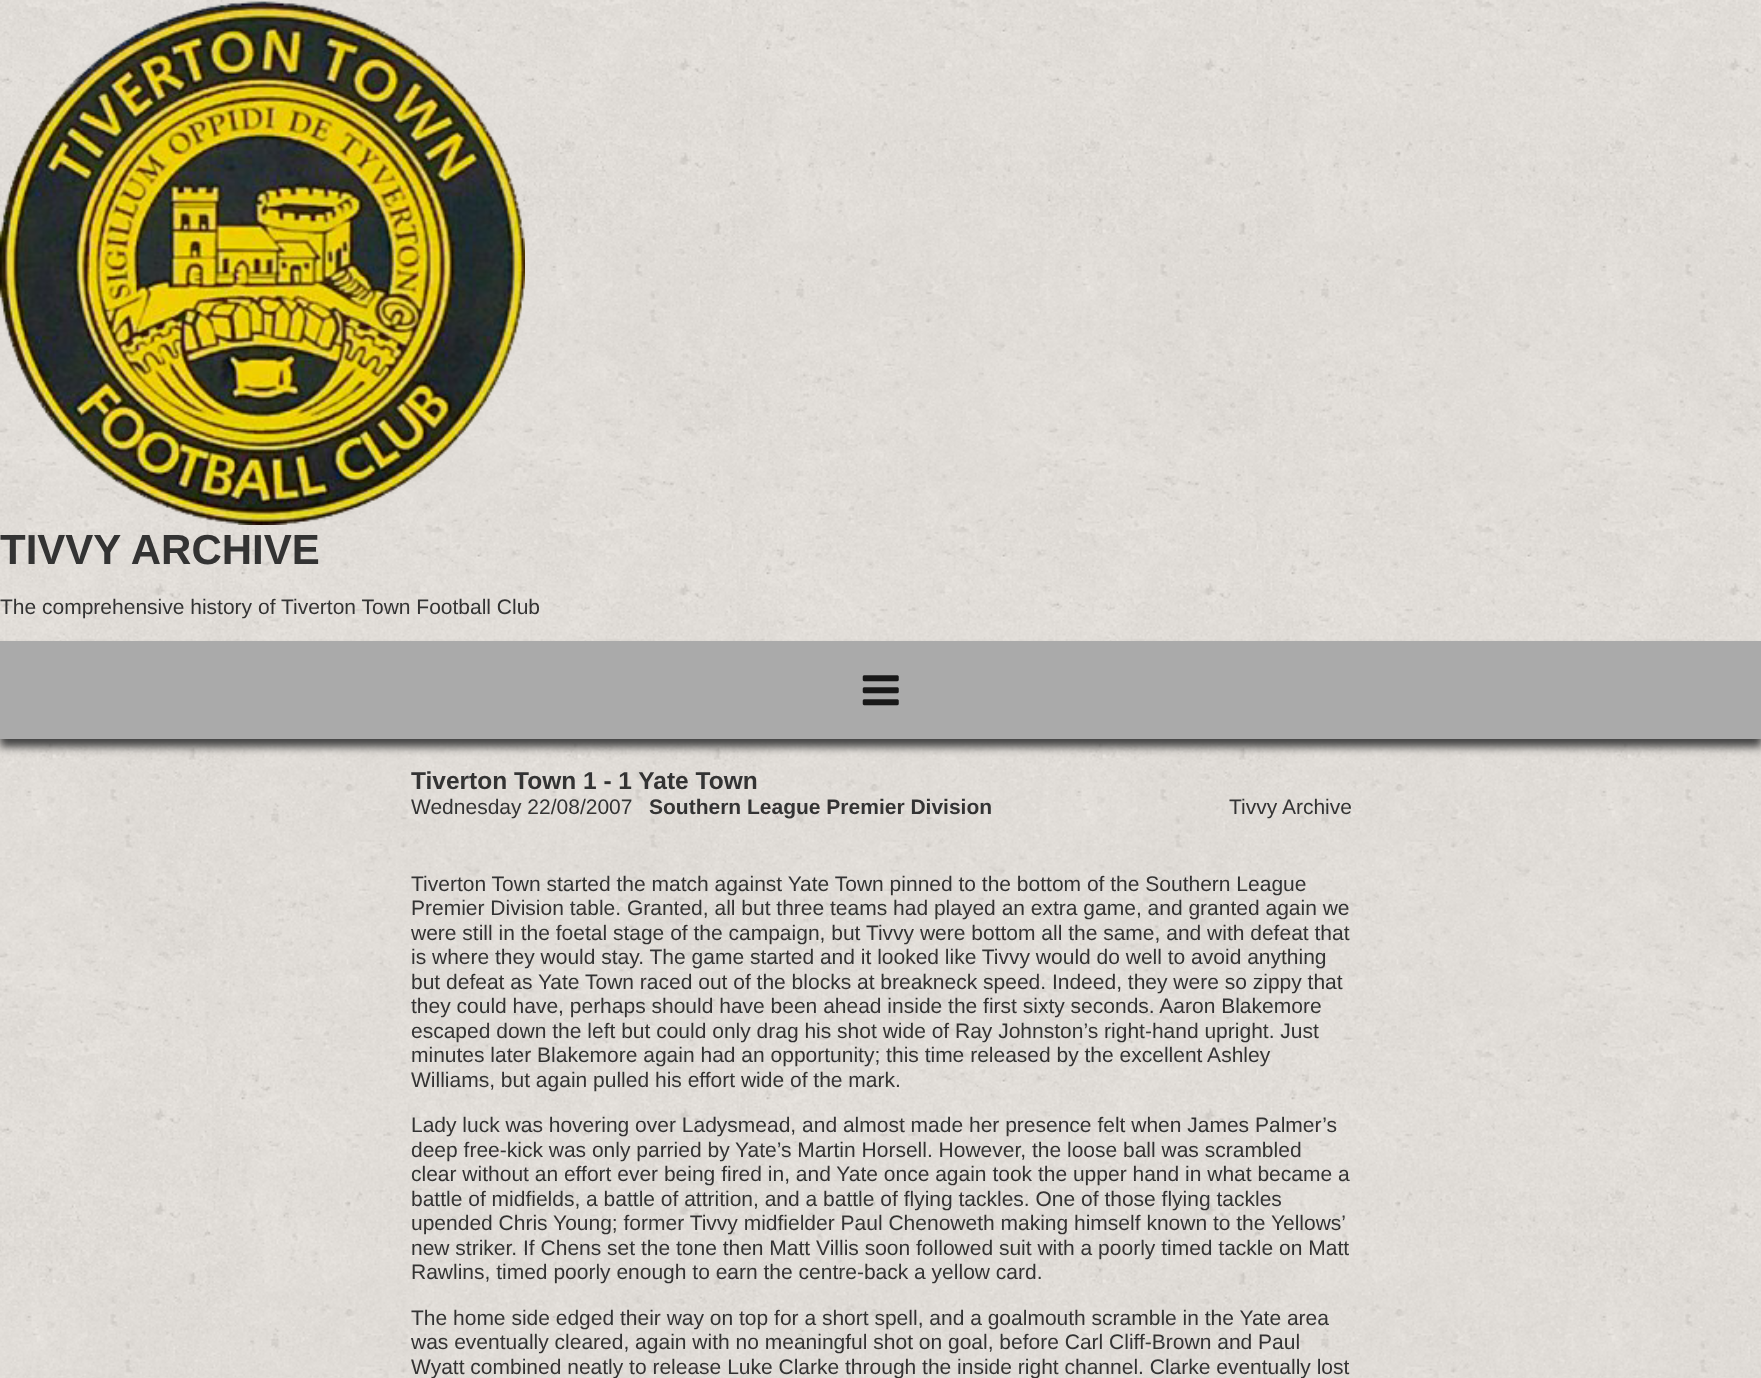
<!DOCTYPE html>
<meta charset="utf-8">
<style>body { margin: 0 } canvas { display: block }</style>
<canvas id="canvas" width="1761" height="1378"></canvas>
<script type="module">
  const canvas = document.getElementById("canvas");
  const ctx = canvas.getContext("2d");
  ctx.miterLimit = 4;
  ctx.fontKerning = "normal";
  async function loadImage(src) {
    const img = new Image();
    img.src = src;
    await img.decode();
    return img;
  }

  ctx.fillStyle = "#ffffff";
  ctx.fillRect(0, 0, 1761, 1378);
  ctx.drawImage(await loadImage("img1.png"), 0, 0, 1761, 1378);
  ctx.drawImage(await loadImage("img2.png"), 0, 1, 525, 524);
  ctx.font = "bold 42px Liberation Sans";
  ctx.fillStyle = "#333333";
  ctx.fillText("TIVVY ARCHIVE", 0, 564);
  ctx.font = "21px Liberation Sans";
  ctx.fillText("The comprehensive history of Tiverton Town Football Club", 0, 614);
  ctx.fillStyle = "#444444";
  ctx.filter = "blur(4.5px)";
  ctx.beginPath();
  ctx.rect(0, 649, 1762, 98);
  ctx.fill();
  ctx.filter = "none";
  ctx.fillStyle = "#aaaaaa";
  ctx.fillRect(0, 641, 1761, 98);
  ctx.drawImage(await loadImage("img3.png"), 862, 675, 37, 31);
  ctx.font = "bold 24.5px Liberation Sans";
  ctx.fillStyle = "#333333";
  ctx.fillText("Tiverton Town 1 - 1 Yate Town", 411, 789);
  ctx.font = "21px Liberation Sans";
  ctx.fillText("Wednesday 22/08/2007", 411, 814);
  ctx.font = "bold 21px Liberation Sans";
  ctx.fillText("Southern League Premier Division", 649, 814);
  ctx.font = "21px Liberation Sans";
  ctx.fillText("Tivvy Archive", 1229, 814);
  ctx.fillText("Tiverton Town started the match against Yate Town pinned to the bottom of the Southern League", 411, 891);
  ctx.fillText("Premier Division table. Granted, all but three teams had played an extra game, and granted again we", 411, 915);
  ctx.fillText("were still in the foetal stage of the campaign, but Tivvy were bottom all the same, and with defeat that", 411, 940);
  ctx.fillText("is where they would stay. The game started and it looked like Tivvy would do well to avoid anything", 411, 964);
  ctx.fillText("but defeat as Yate Town raced out of the blocks at breakneck speed. Indeed, they were so zippy that", 411, 989);
  ctx.fillText("they could have, perhaps should have been ahead inside the first sixty seconds. Aaron Blakemore", 411, 1013);
  ctx.fillText("escaped down the left but could only drag his shot wide of Ray Johnston’s right-hand upright. Just", 411, 1038);
  ctx.fillText("minutes later Blakemore again had an opportunity; this time released by the excellent Ashley", 411, 1062);
  ctx.fillText("Williams, but again pulled his effort wide of the mark.", 411, 1087);
  ctx.fillText("Lady luck was hovering over Ladysmead, and almost made her presence felt when James Palmer’s", 411, 1132);
  ctx.fillText("deep free-kick was only parried by Yate’s Martin Horsell. However, the loose ball was scrambled", 411, 1157);
  ctx.fillText("clear without an effort ever being fired in, and Yate once again took the upper hand in what became a", 411, 1181);
  ctx.fillText("battle of midfields, a battle of attrition, and a battle of flying tackles. One of those flying tackles", 411, 1206);
  ctx.fillText("upended Chris Young; former Tivvy midfielder Paul Chenoweth making himself known to the Yellows’", 411, 1230);
  ctx.fillText("new striker. If Chens set the tone then Matt Villis soon followed suit with a poorly timed tackle on Matt", 411, 1255);
  ctx.fillText("Rawlins, timed poorly enough to earn the centre-back a yellow card.", 411, 1279);
  ctx.fillText("The home side edged their way on top for a short spell, and a goalmouth scramble in the Yate area", 411, 1325);
  ctx.fillText("was eventually cleared, again with no meaningful shot on goal, before Carl Cliff-Brown and Paul", 411, 1349);
  ctx.fillText("Wyatt combined neatly to release Luke Clarke through the inside right channel. Clarke eventually lost", 411, 1374);
</script>
